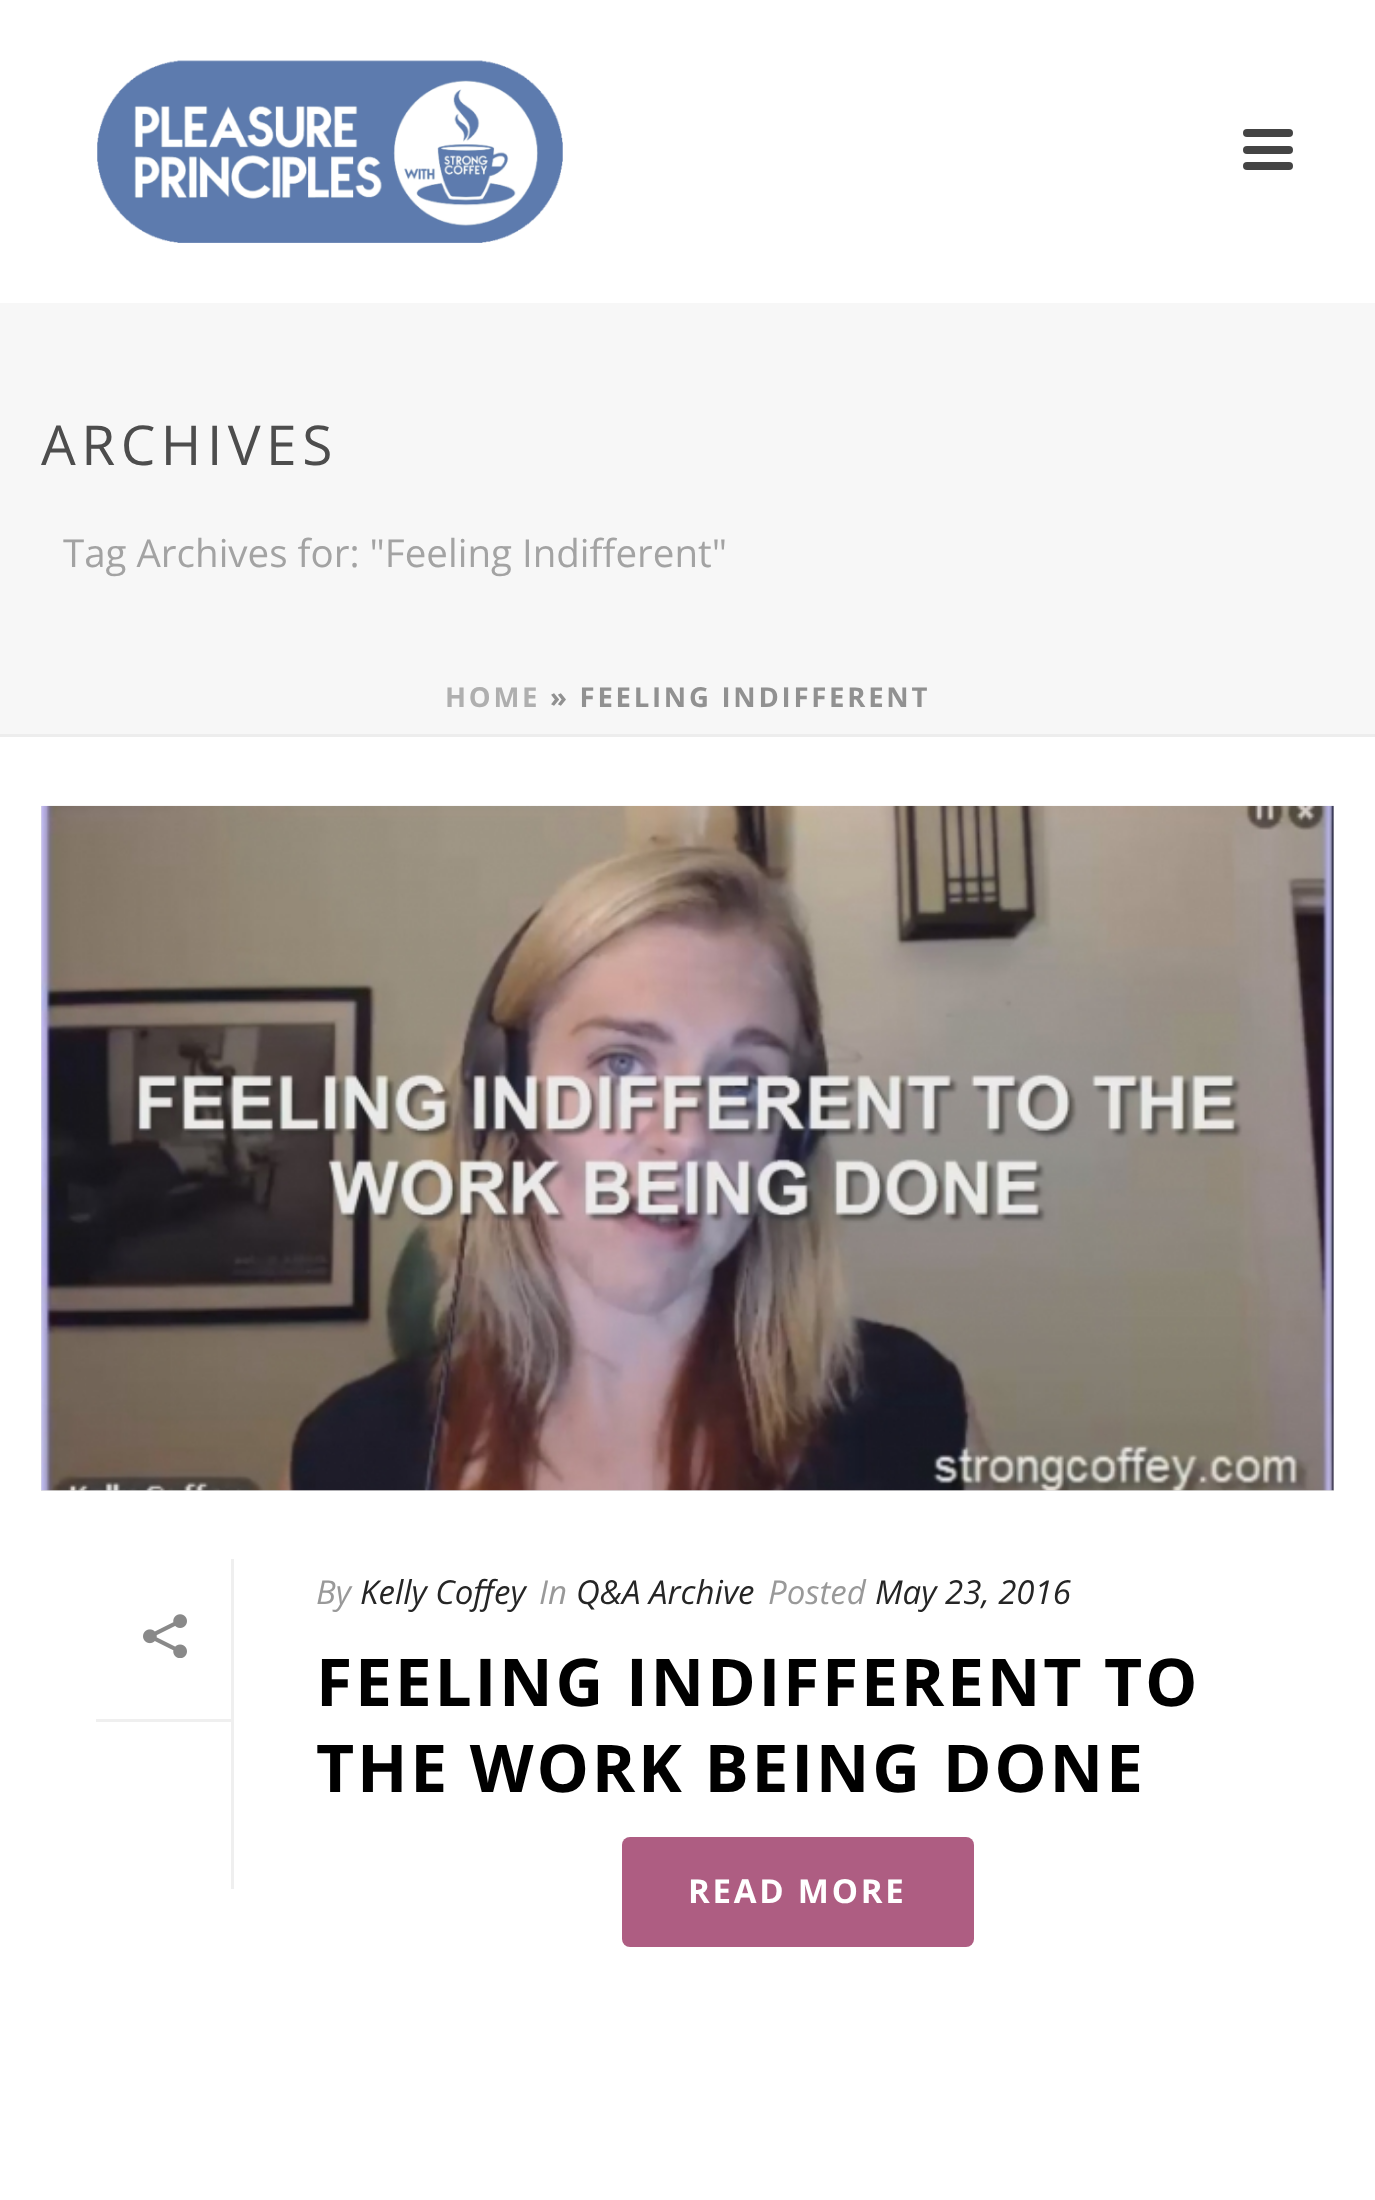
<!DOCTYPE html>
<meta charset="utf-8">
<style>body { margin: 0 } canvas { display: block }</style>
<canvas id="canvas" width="1375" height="2200"></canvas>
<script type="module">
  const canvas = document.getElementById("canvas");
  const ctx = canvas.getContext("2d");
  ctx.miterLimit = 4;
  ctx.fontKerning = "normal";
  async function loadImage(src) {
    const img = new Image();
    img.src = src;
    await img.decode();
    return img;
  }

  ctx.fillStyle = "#ffffff";
  ctx.fillRect(0, 0, 1375, 2200);
  ctx.fillStyle = "#f7f7f7";
  ctx.fillRect(0, 303, 1375, 431);
  ctx.fillStyle = "#ededed";
  ctx.fillRect(0, 734, 1375, 3);
  ctx.drawImage(await loadImage("img1.png"), 97, 60, 466, 183);
  ctx.fillStyle = "#444444";
  ctx.beginPath();
  ctx.roundRect(1243, 129, 50, 8, 4);
  ctx.fill();
  ctx.beginPath();
  ctx.roundRect(1243, 146, 50, 8, 4);
  ctx.fill();
  ctx.beginPath();
  ctx.roundRect(1243, 162, 50, 8, 4);
  ctx.fill();
  ctx.letterSpacing = "5.5px";
  ctx.font = "55px Open Sans";
  ctx.fillStyle = "#4d4d4d";
  ctx.fillText("ARCHIVES", 41, 465);
  ctx.letterSpacing = "0px";
  ctx.font = "38.5px Open Sans";
  ctx.fillStyle = "#a3a3a3";
  ctx.fillText("Tag Archives for: \"Feeling Indifferent\"", 63, 567);
  ctx.letterSpacing = "2.75px";
  ctx.font = "bold 27.5px Open Sans";
  ctx.fillStyle = "#afafaf";
  ctx.fillText("HOME", 445, 707);
  ctx.fillStyle = "#919191";
  ctx.fillText("» FEELING INDIFFERENT", 550, 707);
  ctx.fillStyle = "#e0e0e0";
  ctx.fillRect(41, 806, 1293, 685);
  ctx.drawImage(await loadImage("img2.png"), 41, 805, 1293, 686);
  ctx.fillStyle = "#efefef";
  ctx.fillRect(231, 1559, 3, 330);
  ctx.fillRect(96, 1719, 135, 3);
  ctx.drawImage(await loadImage("img3.png"), 143, 1614, 44, 44);
  ctx.letterSpacing = "0px";
  ctx.font = "italic 33px Open Sans";
  ctx.fillStyle = "#999999";
  ctx.fillText("By", 316, 1604);
  ctx.fillStyle = "#252525";
  ctx.fillText("Kelly Coffey", 360, 1604);
  ctx.fillStyle = "#999999";
  ctx.fillText("In", 539, 1604);
  ctx.fillStyle = "#252525";
  ctx.fillText("Q&A Archive", 576, 1604);
  ctx.fillStyle = "#999999";
  ctx.fillText("Posted", 768, 1604);
  ctx.fillStyle = "#252525";
  ctx.fillText("May 23, 2016", 875, 1604);
  ctx.letterSpacing = "2.75px";
  ctx.font = "bold 66px Open Sans";
  ctx.fillStyle = "#000000";
  ctx.fillText("FEELING INDIFFERENT TO", 316, 1706);
  ctx.fillText("THE WORK BEING DONE", 316, 1792);
  ctx.fillStyle = "#ae5d82";
  ctx.beginPath();
  ctx.roundRect(622, 1837, 352, 110, 8);
  ctx.fill();
  ctx.font = "bold 33px Open Sans";
  ctx.fillStyle = "#ffffff";
  ctx.fillText("READ MORE", 688, 1903);
</script>
